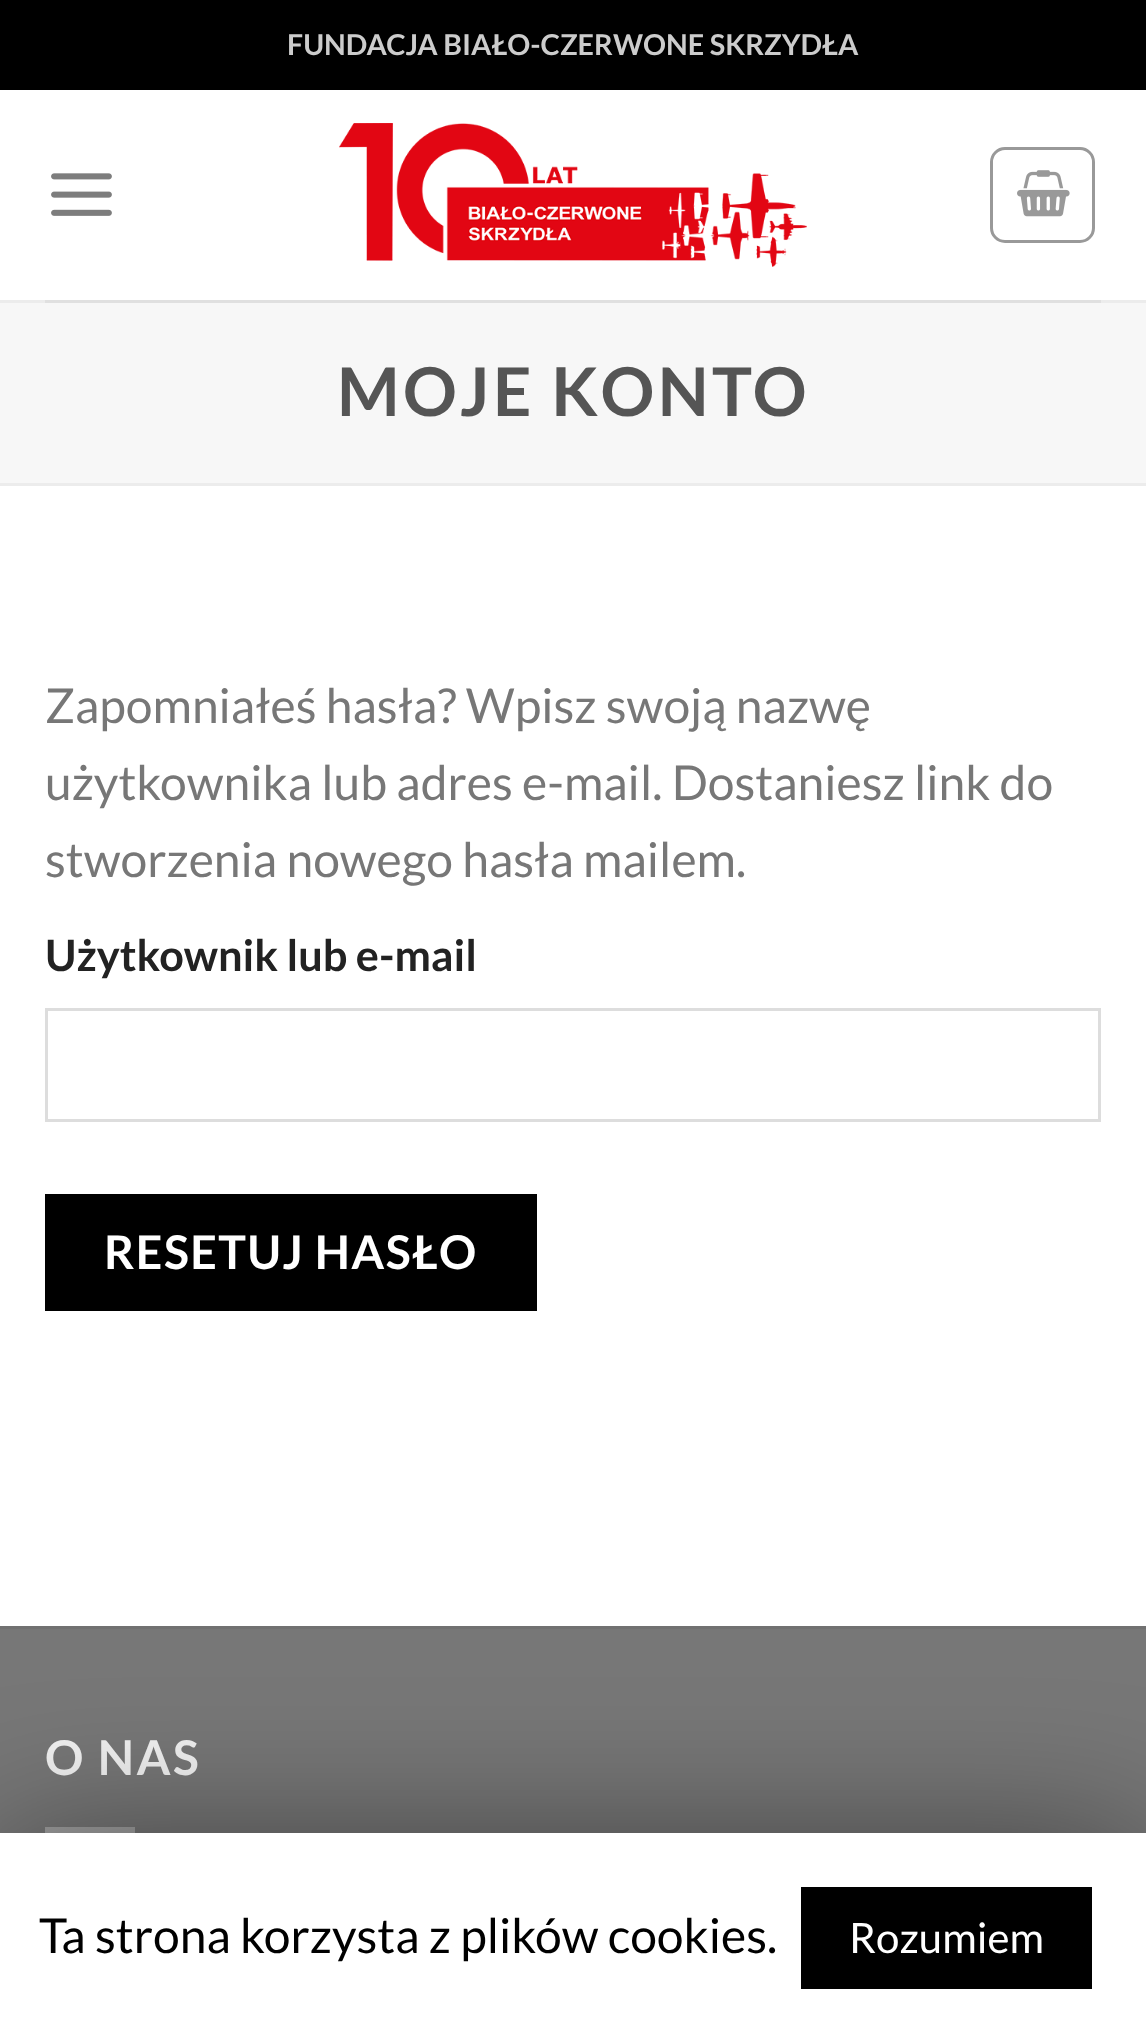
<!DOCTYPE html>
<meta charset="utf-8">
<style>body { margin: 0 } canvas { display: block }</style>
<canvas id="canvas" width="1146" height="2043"></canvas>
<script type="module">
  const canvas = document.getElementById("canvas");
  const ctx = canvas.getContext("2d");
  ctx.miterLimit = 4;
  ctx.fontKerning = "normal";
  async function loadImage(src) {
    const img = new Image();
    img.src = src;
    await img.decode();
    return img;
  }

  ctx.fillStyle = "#ffffff";
  ctx.fillRect(0, 0, 1146, 2043);
  ctx.fillStyle = "#000000";
  ctx.fillRect(0, 0, 1146, 90);
  ctx.font = "bold 28.75px Lato";
  ctx.fillStyle = "#cccccc";
  ctx.fillText("FUNDACJA BIAŁO-CZERWONE SKRZYDŁA", 287, 55);
  ctx.drawImage(await loadImage("img1.png"), 51, 173, 61, 43);
  ctx.drawImage(await loadImage("img2.png"), 339, 123, 468, 144);
  ctx.beginPath();
  ctx.roundRect(991.5, 148.5, 102, 93, 13.5);
  ctx.strokeStyle = "#999999";
  ctx.lineWidth = 3;
  ctx.stroke();
  ctx.drawImage(await loadImage("img3.png"), 1017, 170, 53, 47);
  ctx.fillStyle = "#ececec";
  ctx.fillRect(0, 300, 1146, 3);
  ctx.fillStyle = "#e0e0e0";
  ctx.fillRect(45, 300, 1056, 3);
  ctx.fillStyle = "#f7f7f7";
  ctx.fillRect(0, 303, 1146, 180);
  ctx.fillStyle = "#ececec";
  ctx.fillRect(0, 483, 1146, 3);
  ctx.letterSpacing = "3.4px";
  ctx.font = "bold 67.25px Lato";
  ctx.fillStyle = "#555555";
  ctx.fillText("MOJE KONTO", 337, 416);
  ctx.letterSpacing = "0px";
  ctx.font = "48px Lato";
  ctx.fillStyle = "#777777";
  ctx.fillText("Zapomniałeś hasła? Wpisz swoją nazwę", 45, 723);
  ctx.fillText("użytkownika lub adres e-mail. Dostaniesz link do", 45, 800);
  ctx.fillText("stworzenia nowego hasła mailem.", 45, 877);
  ctx.font = "bold 43.25px Lato";
  ctx.fillStyle = "#222222";
  ctx.fillText("Użytkownik lub e-mail", 45, 971);
  ctx.strokeStyle = "#dddddd";
  ctx.strokeRect(46.5, 1009.5, 1053, 111);
  ctx.fillStyle = "#000000";
  ctx.fillRect(45, 1194, 492, 117);
  ctx.letterSpacing = "1.4px";
  ctx.font = "bold 46.5px Lato";
  ctx.fillStyle = "#ffffff";
  ctx.fillText("RESETUJ HASŁO", 104, 1269);
  ctx.fillStyle = "#777777";
  ctx.fillRect(0, 1629, 1146, 204);
  ctx.fillStyle = "#717171";
  ctx.fillRect(0, 1626, 1146, 3);
  ctx.letterSpacing = "2.5px";
  ctx.font = "bold 48px Lato";
  ctx.fillStyle = "#f1f1f1";
  ctx.fillText("O NAS", 45, 1775);
  ctx.fillStyle = "#a0a0a0";
  ctx.fillRect(45, 1827, 90, 6);
  ctx.fillStyle = "rgba(0, 0, 0, 0.5)";
  ctx.filter = "blur(75px)";
  ctx.beginPath();
  ctx.rect(0, 1848, 1146, 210);
  ctx.fill();
  ctx.filter = "none";
  ctx.fillStyle = "#ffffff";
  ctx.fillRect(0, 1833, 1146, 210);
  ctx.letterSpacing = "0px";
  ctx.font = "48px Lato";
  ctx.fillStyle = "#000000";
  ctx.fillText("Ta strona korzysta z plików cookies.", 39, 1953);
  ctx.fillRect(801, 1887, 291, 102);
  ctx.font = "42px Lato";
  ctx.fillStyle = "#ffffff";
  ctx.fillText("Rozumiem", 849, 1953);
</script>
